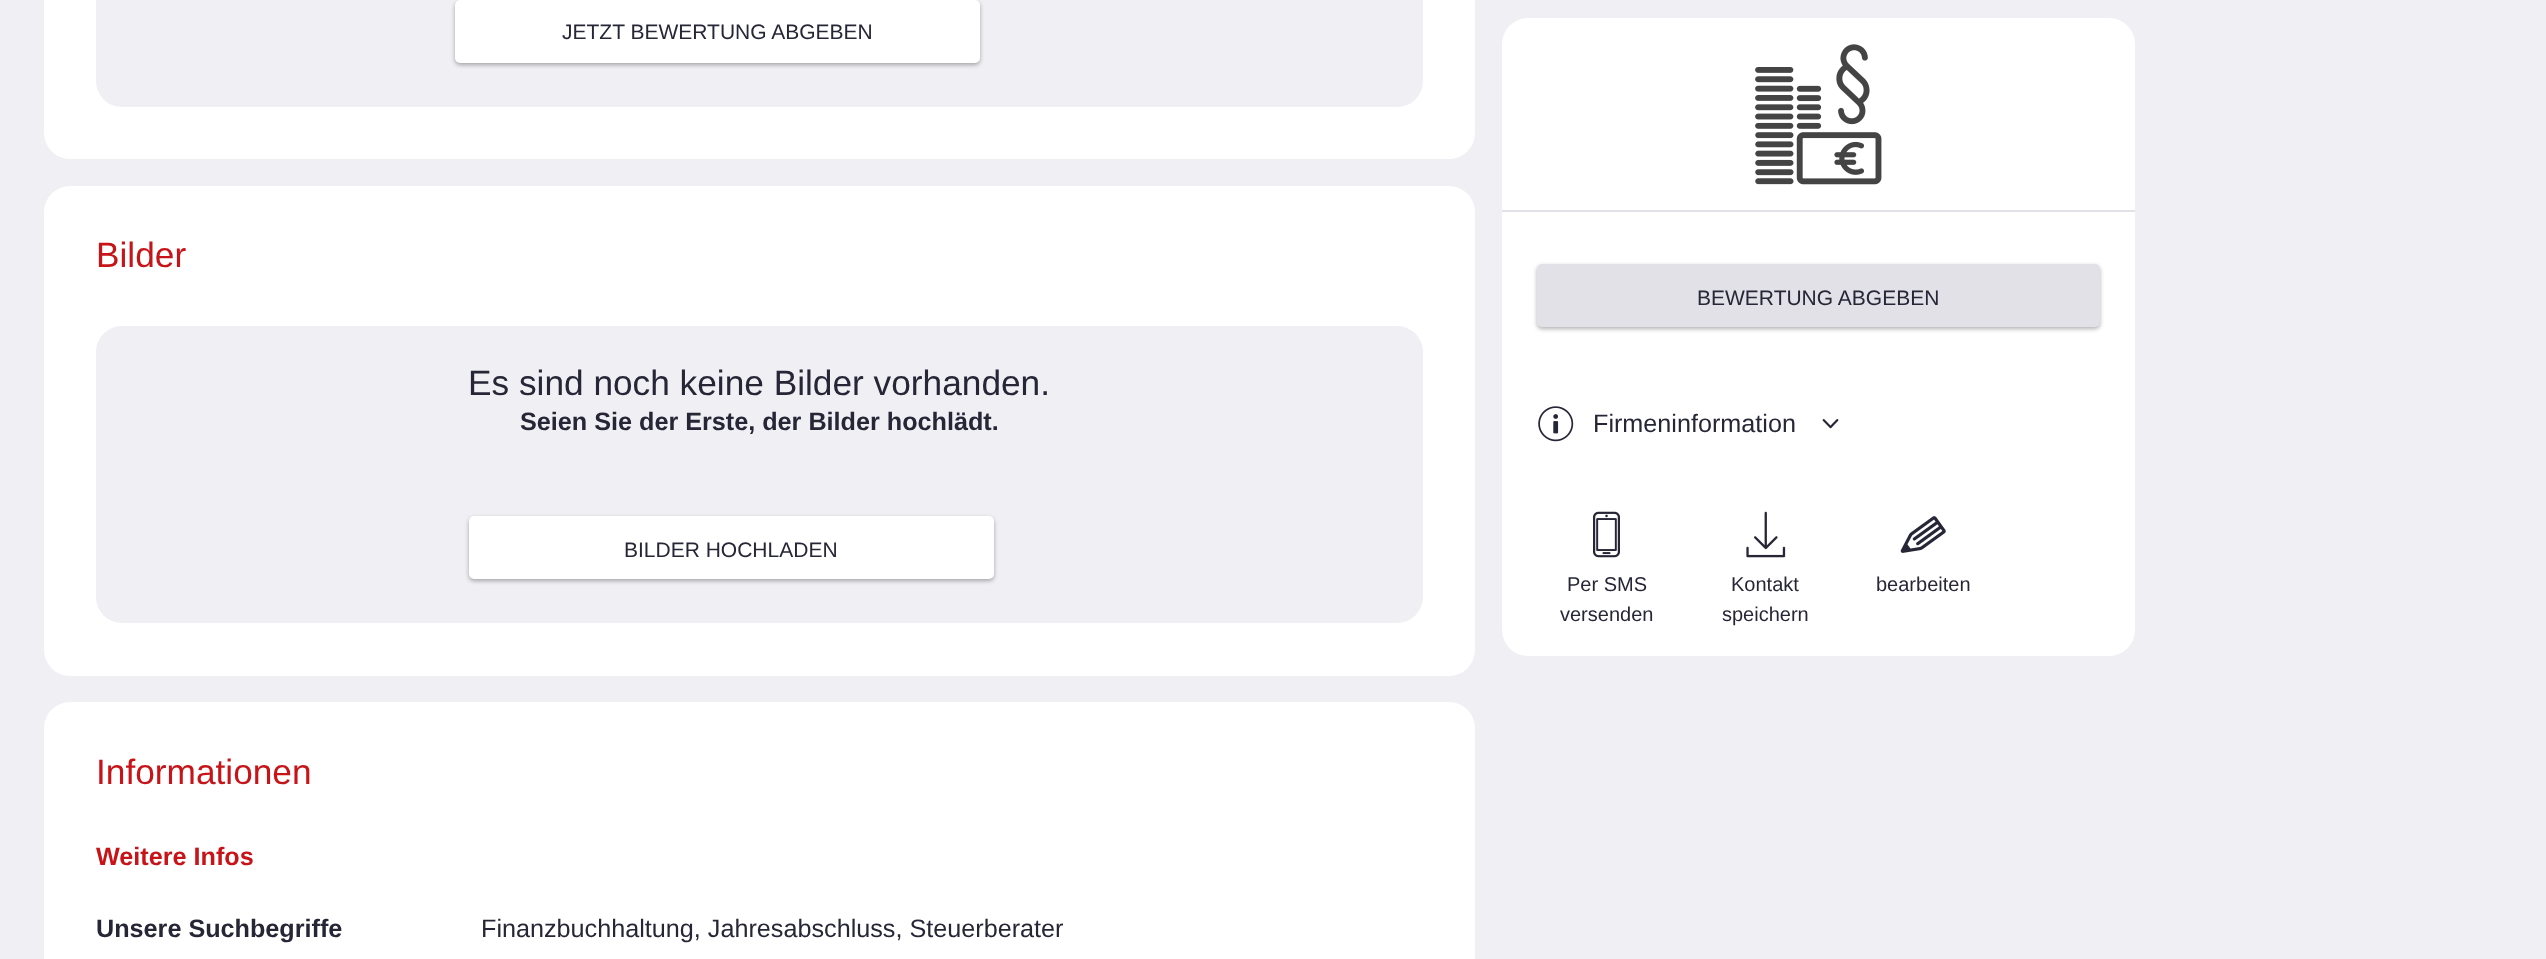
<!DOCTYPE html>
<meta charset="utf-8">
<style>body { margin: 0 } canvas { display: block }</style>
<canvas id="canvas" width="2546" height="959"></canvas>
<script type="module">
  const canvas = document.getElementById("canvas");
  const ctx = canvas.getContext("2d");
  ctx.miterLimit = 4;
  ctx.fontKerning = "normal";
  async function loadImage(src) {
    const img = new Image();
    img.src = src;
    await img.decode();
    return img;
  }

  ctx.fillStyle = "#efeff4";
  ctx.fillRect(0, 0, 2546, 959);
  ctx.fillStyle = "#ffffff";
  ctx.beginPath();
  ctx.roundRect(44, -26, 1431, 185, 26);
  ctx.fill();
  ctx.fillStyle = "#efeff4";
  ctx.beginPath();
  ctx.roundRect(96, -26, 1327, 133, 26);
  ctx.fill();
  ctx.fillStyle = "rgba(0, 0, 0, 0.3)";
  ctx.filter = "blur(2px)";
  ctx.beginPath();
  ctx.roundRect(455, 2, 525, 63, 5);
  ctx.fill();
  ctx.filter = "none";
  ctx.fillStyle = "#ffffff";
  ctx.beginPath();
  ctx.roundRect(455, 0, 525, 63, 5);
  ctx.fill();
  ctx.font = "21px Liberation Sans";
  ctx.fillStyle = "#262637";
  ctx.fillText("JETZT BEWERTUNG ABGEBEN", 562, 39);
  ctx.fillStyle = "#ffffff";
  ctx.beginPath();
  ctx.roundRect(44, 186, 1431, 490, 26);
  ctx.fill();
  ctx.font = "35.25px Liberation Sans";
  ctx.fillStyle = "#c71418";
  ctx.fillText("Bilder", 96, 267);
  ctx.fillStyle = "#efeff4";
  ctx.beginPath();
  ctx.roundRect(96, 326, 1327, 297, 26);
  ctx.fill();
  ctx.fillStyle = "#262637";
  ctx.fillText("Es sind noch keine Bilder vorhanden.", 468, 395);
  ctx.font = "bold 25.2px Liberation Sans";
  ctx.fillText("Seien Sie der Erste, der Bilder hochlädt.", 520, 430);
  ctx.fillStyle = "rgba(0, 0, 0, 0.3)";
  ctx.filter = "blur(2px)";
  ctx.beginPath();
  ctx.roundRect(469, 518, 525, 63, 5);
  ctx.fill();
  ctx.filter = "none";
  ctx.fillStyle = "#ffffff";
  ctx.beginPath();
  ctx.roundRect(469, 516, 525, 63, 5);
  ctx.fill();
  ctx.font = "21px Liberation Sans";
  ctx.fillStyle = "#262637";
  ctx.fillText("BILDER HOCHLADEN", 624, 557);
  ctx.fillStyle = "#ffffff";
  ctx.beginPath();
  ctx.roundRect(1502, 18, 633, 638, 26);
  ctx.fill();
  ctx.fillStyle = "#e1e1e7";
  ctx.fillRect(1502, 210, 633, 2);
  ctx.drawImage(await loadImage("img1.png"), 1755, 44, 127, 141);
  ctx.fillStyle = "rgba(0, 0, 0, 0.3)";
  ctx.filter = "blur(2px)";
  ctx.beginPath();
  ctx.roundRect(1537, 266, 563, 63, 5);
  ctx.fill();
  ctx.filter = "none";
  ctx.fillStyle = "#e1e1e7";
  ctx.beginPath();
  ctx.roundRect(1537, 264, 563, 63, 5);
  ctx.fill();
  ctx.fillStyle = "#262637";
  ctx.fillText("BEWERTUNG ABGEBEN", 1697, 305);
  ctx.drawImage(await loadImage("img2.png"), 1538, 406, 36, 36);
  ctx.font = "25.2px Liberation Sans";
  ctx.fillText("Firmeninformation", 1593, 432);
  ctx.drawImage(await loadImage("img3.png"), 1822, 419, 17, 10);
  ctx.drawImage(await loadImage("img4.png"), 1593, 511, 27, 47);
  ctx.font = "20px Liberation Sans";
  ctx.fillText("Per SMS", 1567, 591);
  ctx.fillText("versenden", 1560, 621);
  ctx.drawImage(await loadImage("img5.png"), 1746, 511, 40, 47);
  ctx.fillText("Kontakt", 1731, 591);
  ctx.fillText("speichern", 1722, 621);
  ctx.drawImage(await loadImage("img6.png"), 1900, 516, 46, 37);
  ctx.fillText("bearbeiten", 1876, 591);
  ctx.fillStyle = "#ffffff";
  ctx.beginPath();
  ctx.roundRect(44, 702, 1431, 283, 26);
  ctx.fill();
  ctx.font = "35.25px Liberation Sans";
  ctx.fillStyle = "#c71418";
  ctx.fillText("Informationen", 96, 784);
  ctx.font = "bold 25.2px Liberation Sans";
  ctx.fillText("Weitere Infos", 96, 865);
  ctx.fillStyle = "#262637";
  ctx.fillText("Unsere Suchbegriffe", 96, 937);
  ctx.font = "25.2px Liberation Sans";
  ctx.fillText("Finanzbuchhaltung, Jahresabschluss, Steuerberater", 481, 937);
</script>
